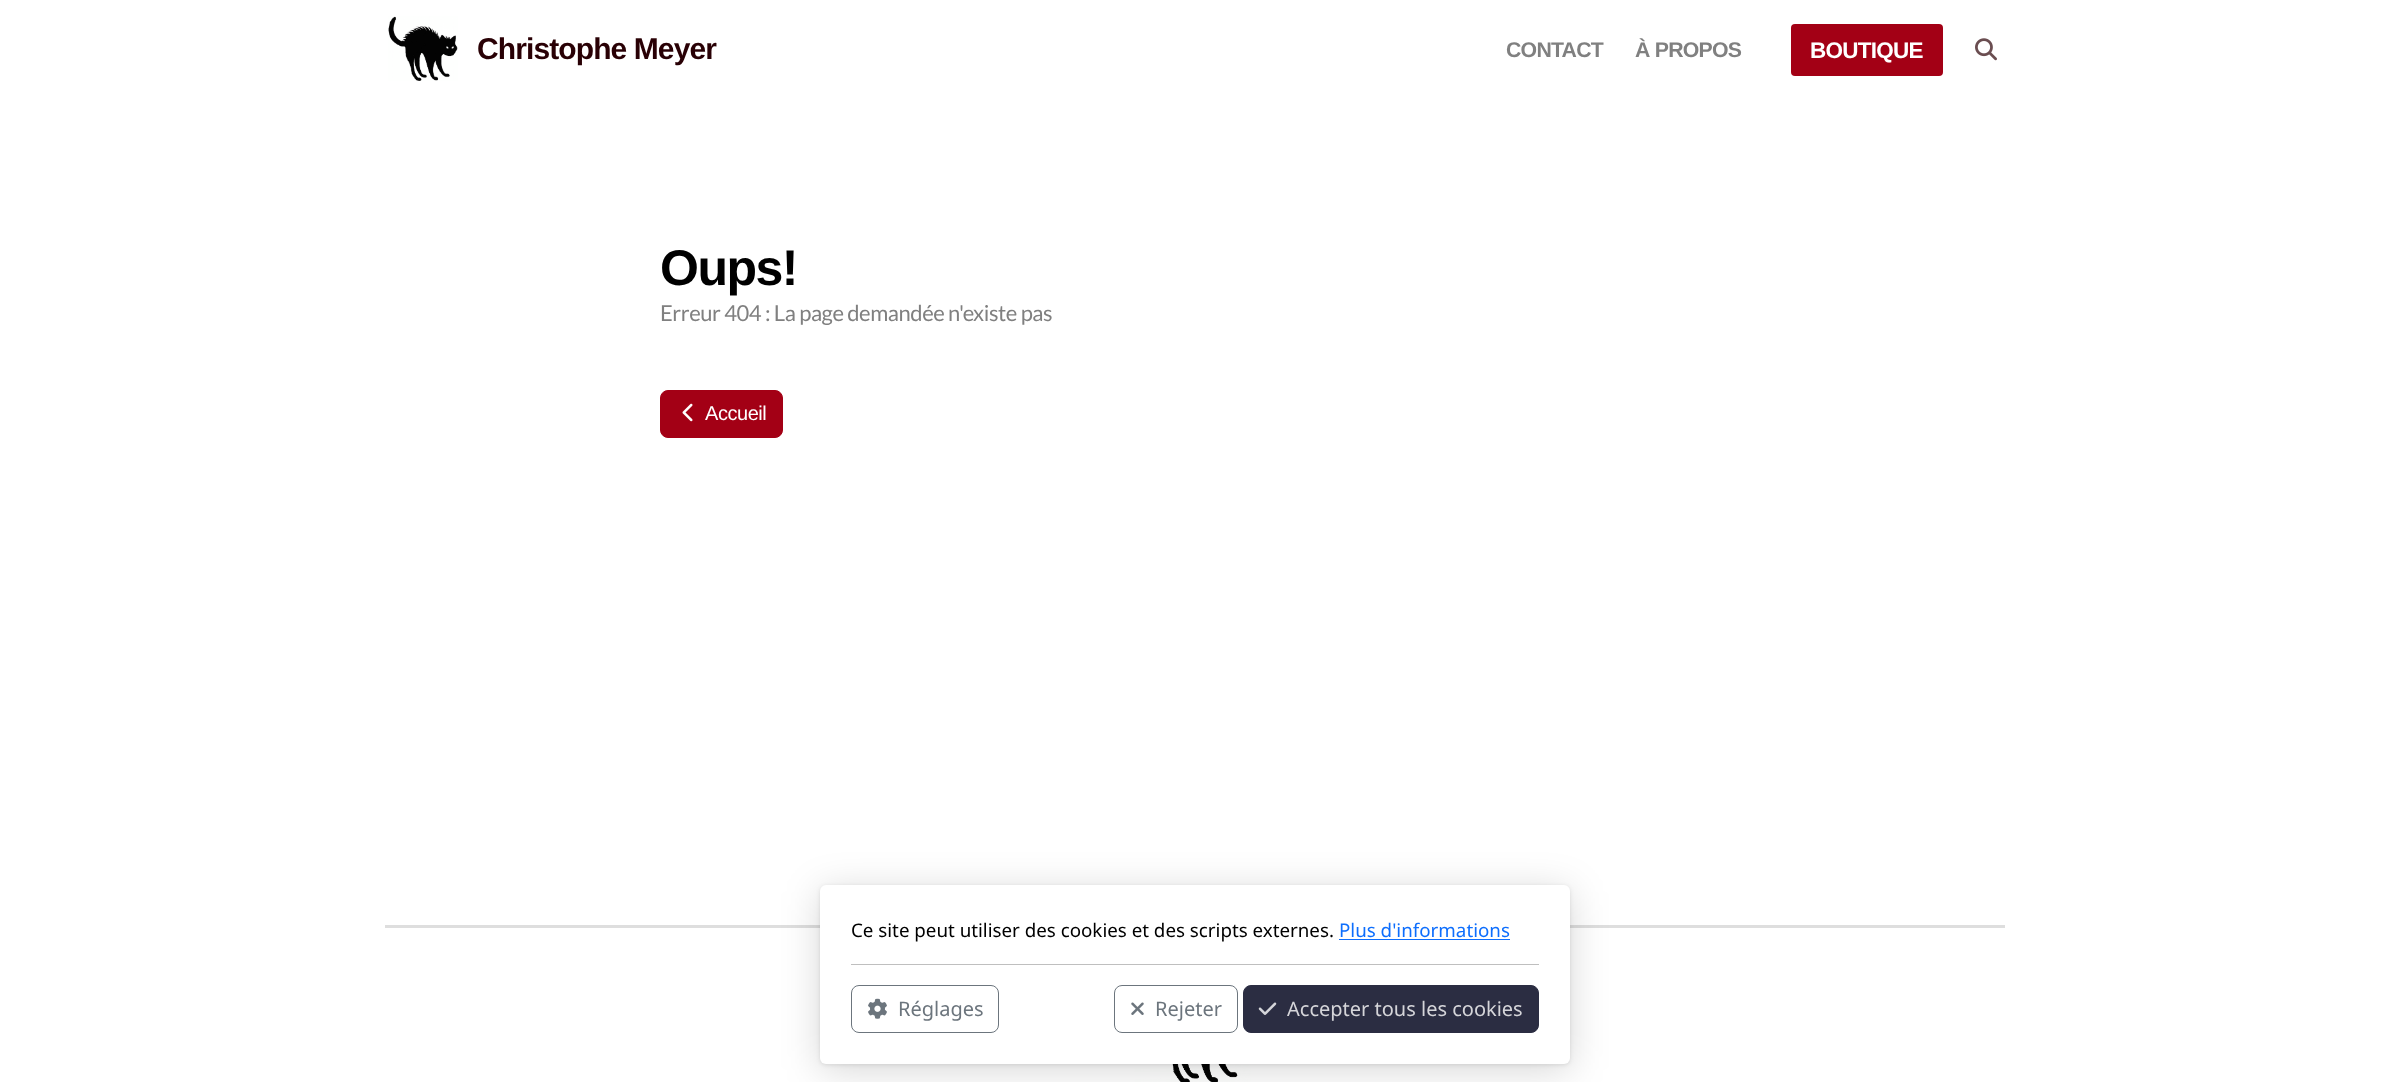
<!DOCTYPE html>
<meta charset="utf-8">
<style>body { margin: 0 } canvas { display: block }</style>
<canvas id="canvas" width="2390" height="1082"></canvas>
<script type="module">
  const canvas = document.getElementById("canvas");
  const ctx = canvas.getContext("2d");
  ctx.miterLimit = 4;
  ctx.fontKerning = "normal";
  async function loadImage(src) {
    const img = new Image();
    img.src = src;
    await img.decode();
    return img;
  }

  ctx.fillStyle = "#ffffff";
  ctx.fillRect(0, 0, 2390, 1082);
  ctx.drawImage(await loadImage("img1.png"), 388, 16, 70, 65);
  ctx.letterSpacing = "-0.9px";
  ctx.font = "bold 30px Liberation Sans";
  ctx.fillStyle = "#290005";
  ctx.fillText("Christophe Meyer", 477, 59);
  ctx.letterSpacing = "-0.75px";
  ctx.font = "bold 21.25px Liberation Sans";
  ctx.fillStyle = "#808080";
  ctx.fillText("CONTACT", 1506, 57);
  ctx.fillText("À PROPOS", 1635, 57);
  ctx.fillStyle = "#a30015";
  ctx.beginPath();
  ctx.roundRect(1791, 24, 152, 52, 4);
  ctx.fill();
  ctx.font = "bold 22.5px Liberation Sans";
  ctx.fillStyle = "#ffffff";
  ctx.fillText("BOUTIQUE", 1810, 58);
  ctx.drawImage(await loadImage("img2.png"), 1975, 38, 22, 23);
  ctx.letterSpacing = "-1.5px";
  ctx.font = "bold 50px Liberation Sans";
  ctx.fillStyle = "#000000";
  ctx.fillText("Oups!", 660, 285);
  ctx.letterSpacing = "-0.45px";
  ctx.font = "22px Lato";
  ctx.fillStyle = "#808080";
  ctx.fillText("Erreur 404 : La page demandée n'existe pas", 660, 321);
  ctx.fillStyle = "#a30015";
  ctx.beginPath();
  ctx.roundRect(660.5, 390.5, 122, 47, 7.5);
  ctx.fill();
  ctx.strokeStyle = "#a30015";
  ctx.stroke();
  ctx.drawImage(await loadImage("img3.png"), 682, 403, 11, 19);
  ctx.font = "20px Liberation Sans";
  ctx.fillStyle = "#ffffff";
  ctx.fillText("Accueil", 705, 420);
  ctx.fillStyle = "#dedede";
  ctx.fillRect(385, 925, 1620, 3);
  ctx.drawImage(await loadImage("img4.png"), 1134, 1064, 117, 18);
  ctx.fillStyle = "rgba(0, 0, 0, 0.16)";
  ctx.filter = "blur(19px)";
  ctx.beginPath();
  ctx.roundRect(820, 891, 750, 179, 6);
  ctx.fill();
  ctx.filter = "none";
  ctx.fillStyle = "rgba(0, 0, 0, 0.1)";
  ctx.filter = "blur(2px)";
  ctx.beginPath();
  ctx.roundRect(820, 886, 750, 179, 6);
  ctx.fill();
  ctx.filter = "none";
  ctx.fillStyle = "#ffffff";
  ctx.beginPath();
  ctx.roundRect(820, 885, 750, 179, 6);
  ctx.fill();
  ctx.letterSpacing = "0px";
  ctx.font = "18.75px Noto Sans";
  ctx.fillStyle = "#000000";
  ctx.fillText("Ce site peut utiliser des cookies et des scripts externes.", 851, 937);
  ctx.fillStyle = "#0d6efd";
  ctx.fillText("Plus d'informations", 1339, 937);
  ctx.fillRect(1339, 939, 171, 1);
  ctx.fillStyle = "#bfbfbf";
  ctx.fillRect(851, 964, 688, 1);
  ctx.beginPath();
  ctx.roundRect(851.5, 985.5, 147, 47, 7.5);
  ctx.strokeStyle = "#6c757d";
  ctx.stroke();
  ctx.drawImage(await loadImage("img5.png"), 868, 998, 19, 21);
  ctx.font = "20px Noto Sans";
  ctx.fillStyle = "#6c757d";
  ctx.fillText("Réglages", 898, 1016);
  ctx.beginPath();
  ctx.roundRect(1114.5, 985.5, 123, 47, 7.5);
  ctx.stroke();
  ctx.drawImage(await loadImage("img6.png"), 1131, 1002, 13, 13);
  ctx.fillText("Rejeter", 1155, 1016);
  ctx.fillStyle = "#2b2d42";
  ctx.beginPath();
  ctx.roundRect(1243.5, 985.5, 295, 47, 7.5);
  ctx.fill();
  ctx.strokeStyle = "#2b2d42";
  ctx.stroke();
  ctx.drawImage(await loadImage("img7.png"), 1258, 1002, 19, 13);
  ctx.fillStyle = "#d5d5d9";
  ctx.fillText("Accepter tous les cookies", 1287, 1016);
</script>
